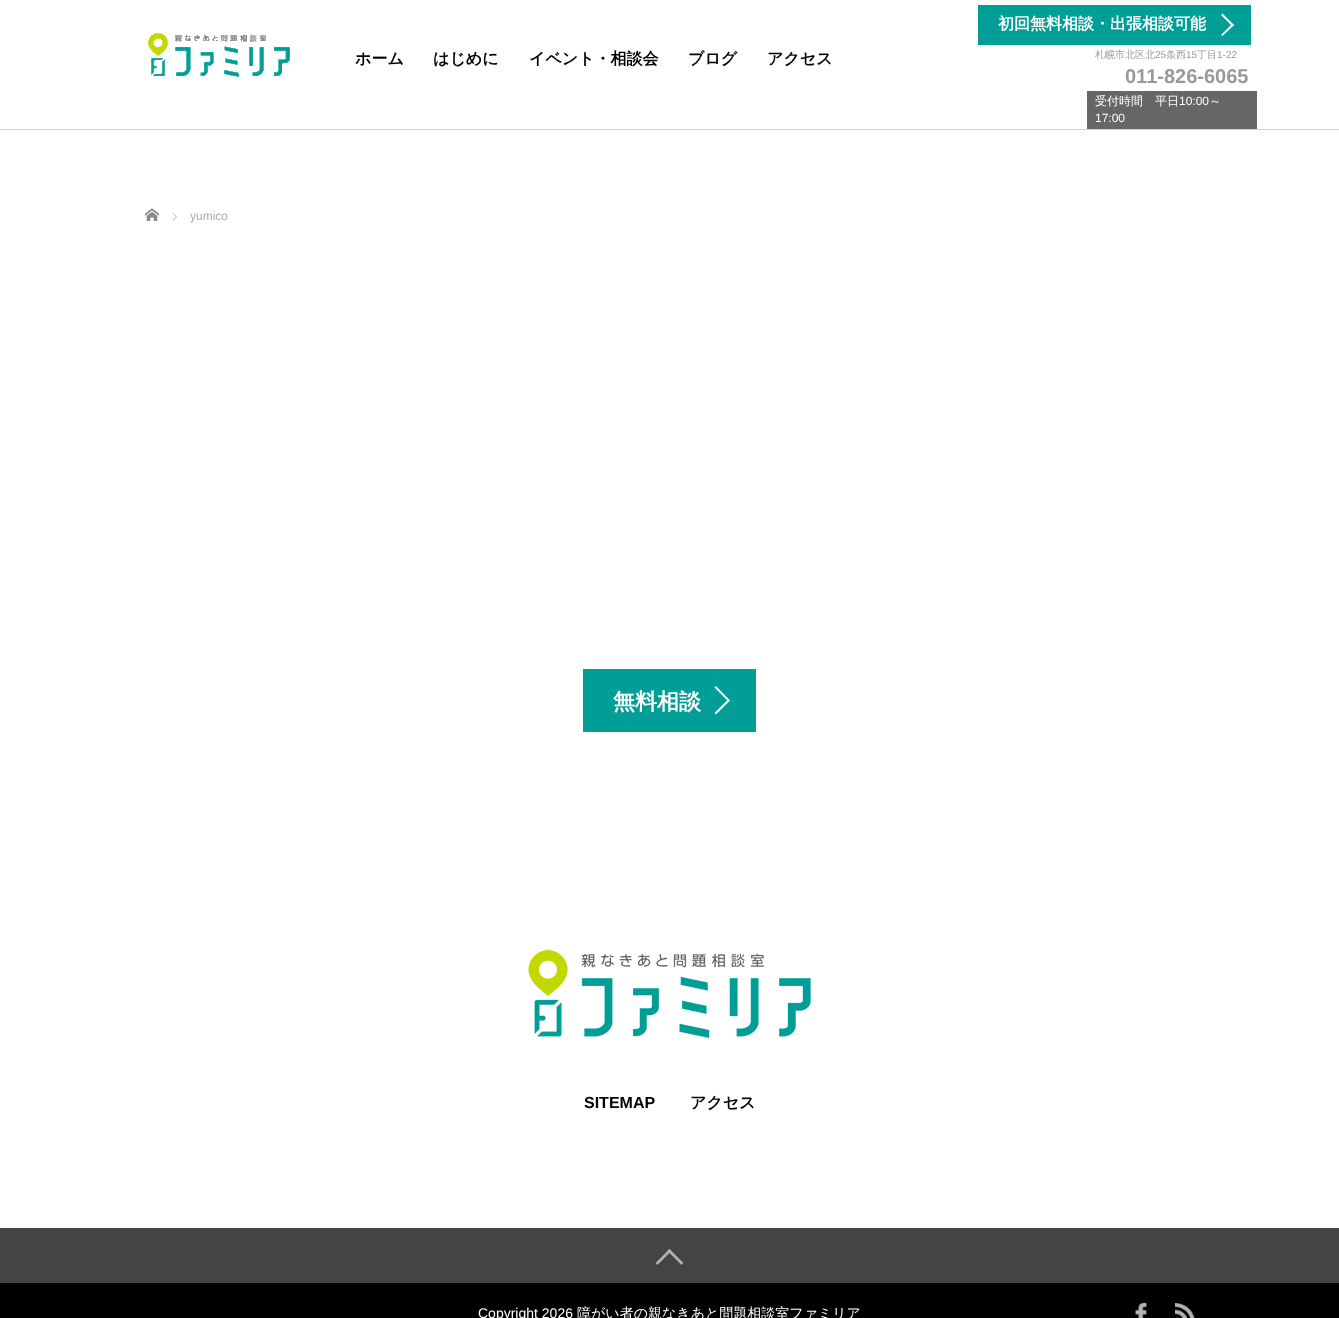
<!DOCTYPE html>
<meta charset="utf-8">
<style>body { margin: 0 } canvas { display: block }</style>
<canvas id="canvas" width="1339" height="1318"></canvas>
<script type="module">
  const canvas = document.getElementById("canvas");
  const ctx = canvas.getContext("2d");
  ctx.miterLimit = 4;
  ctx.fontKerning = "normal";
  async function loadImage(src) {
    const img = new Image();
    img.src = src;
    await img.decode();
    return img;
  }

  ctx.fillStyle = "#ffffff";
  ctx.fillRect(0, 0, 1339, 1318);
  ctx.fillStyle = "#d3d3d3";
  ctx.fillRect(0, 129, 1339, 1);
  ctx.drawImage(await loadImage("img1.png"), 148, 33, 142, 44);
  ctx.font = "bold 16px WenQuanYi Zen Hei";
  ctx.fillStyle = "#000000";
  ctx.fillText("ホーム", 355, 64);
  ctx.fillText("はじめに", 433, 64);
  ctx.fillText("イベント・相談会", 529, 64);
  ctx.fillText("ブログ", 688, 64);
  ctx.fillText("アクセス", 767, 64);
  ctx.fillStyle = "#009e96";
  ctx.fillRect(978, 5, 273, 40);
  ctx.fillStyle = "#ffffff";
  ctx.fillText("初回無料相談・出張相談可能", 998, 29);
  ctx.beginPath();
  ctx.moveTo(1222.5, 13.5);
  ctx.lineTo(1234, 25);
  ctx.lineTo(1232.5, 26.5);
  ctx.lineTo(1221, 15);
  ctx.closePath();
  ctx.fill();
  ctx.beginPath();
  ctx.moveTo(1232.5, 23.5);
  ctx.lineTo(1234, 25);
  ctx.lineTo(1222.5, 36);
  ctx.lineTo(1221, 35);
  ctx.closePath();
  ctx.fill();
  ctx.font = "500 10px WenQuanYi Zen Hei";
  ctx.fillStyle = "#999999";
  ctx.fillText("札幌市北区北", 1095, 58);
  ctx.font = "10px Liberation Sans";
  ctx.fillText("25", 1155, 58);
  ctx.font = "500 10px WenQuanYi Zen Hei";
  ctx.fillText("条西", 1166, 58);
  ctx.font = "10px Liberation Sans";
  ctx.fillText("15", 1186, 58);
  ctx.font = "500 10px WenQuanYi Zen Hei";
  ctx.fillText("丁目", 1197, 58);
  ctx.font = "10px Liberation Sans";
  ctx.fillText("1-22", 1217, 58);
  ctx.font = "bold 20px Liberation Sans";
  ctx.fillText("011-826-6065", 1125, 83);
  ctx.fillStyle = "#666666";
  ctx.fillRect(1087, 91, 170, 38);
  ctx.font = "500 12px WenQuanYi Zen Hei";
  ctx.fillStyle = "#ffffff";
  ctx.fillText("受付時間　平日", 1095, 105);
  ctx.font = "12px Liberation Sans";
  ctx.fillText("10:00", 1179, 105);
  ctx.font = "500 12px WenQuanYi Zen Hei";
  ctx.fillText("～", 1209, 105);
  ctx.font = "12px Liberation Sans";
  ctx.fillText("17:00", 1095, 122);
  ctx.drawImage(await loadImage("img2.png"), 145, 208, 14, 13);
  ctx.drawImage(await loadImage("img3.png"), 172, 213, 5, 8);
  ctx.fillStyle = "#aaaaaa";
  ctx.fillText("yumico", 190, 220);
  ctx.fillStyle = "#009e96";
  ctx.fillRect(583, 669, 173, 63);
  ctx.font = "bold 22px WenQuanYi Zen Hei";
  ctx.fillStyle = "#ffffff";
  ctx.fillText("無料相談", 613, 709);
  ctx.beginPath();
  ctx.moveTo(716, 686);
  ctx.lineTo(730, 700.5);
  ctx.lineTo(728.5, 701.5);
  ctx.lineTo(714.5, 687.5);
  ctx.closePath();
  ctx.fill();
  ctx.beginPath();
  ctx.moveTo(728.5, 699);
  ctx.lineTo(730, 700.5);
  ctx.lineTo(716, 714.5);
  ctx.lineTo(714.5, 713);
  ctx.closePath();
  ctx.fill();
  ctx.drawImage(await loadImage("img4.png"), 528, 949, 283, 89);
  ctx.font = "bold 16px Liberation Sans";
  ctx.fillStyle = "#000000";
  ctx.fillText("SITEMAP", 584, 1108);
  ctx.font = "bold 16px WenQuanYi Zen Hei";
  ctx.fillText("アクセス", 690, 1108);
  ctx.fillStyle = "#444444";
  ctx.fillRect(0, 1228, 1339, 55);
  ctx.fillStyle = "#b0b2b0";
  ctx.beginPath();
  ctx.moveTo(655.5, 1263);
  ctx.lineTo(669.5, 1249);
  ctx.lineTo(671.5, 1251);
  ctx.lineTo(657.5, 1265);
  ctx.closePath();
  ctx.fill();
  ctx.beginPath();
  ctx.moveTo(667.5, 1251);
  ctx.lineTo(669.5, 1249);
  ctx.lineTo(683.5, 1263);
  ctx.lineTo(681.5, 1265);
  ctx.closePath();
  ctx.fill();
  ctx.fillStyle = "#000000";
  ctx.fillRect(0, 1283, 1339, 35);
  ctx.font = "14px Liberation Sans";
  ctx.fillStyle = "#ffffff";
  ctx.fillText("Copyright 2026", 478, 1318);
  ctx.font = "500 14px WenQuanYi Zen Hei";
  ctx.fillText("障がい者の親なきあと問題相談室ファミリア", 577, 1318);
  ctx.drawImage(await loadImage("img5.png"), 1135, 1303, 12, 15);
  ctx.drawImage(await loadImage("img6.png"), 1175, 1303, 20, 15);
</script>
